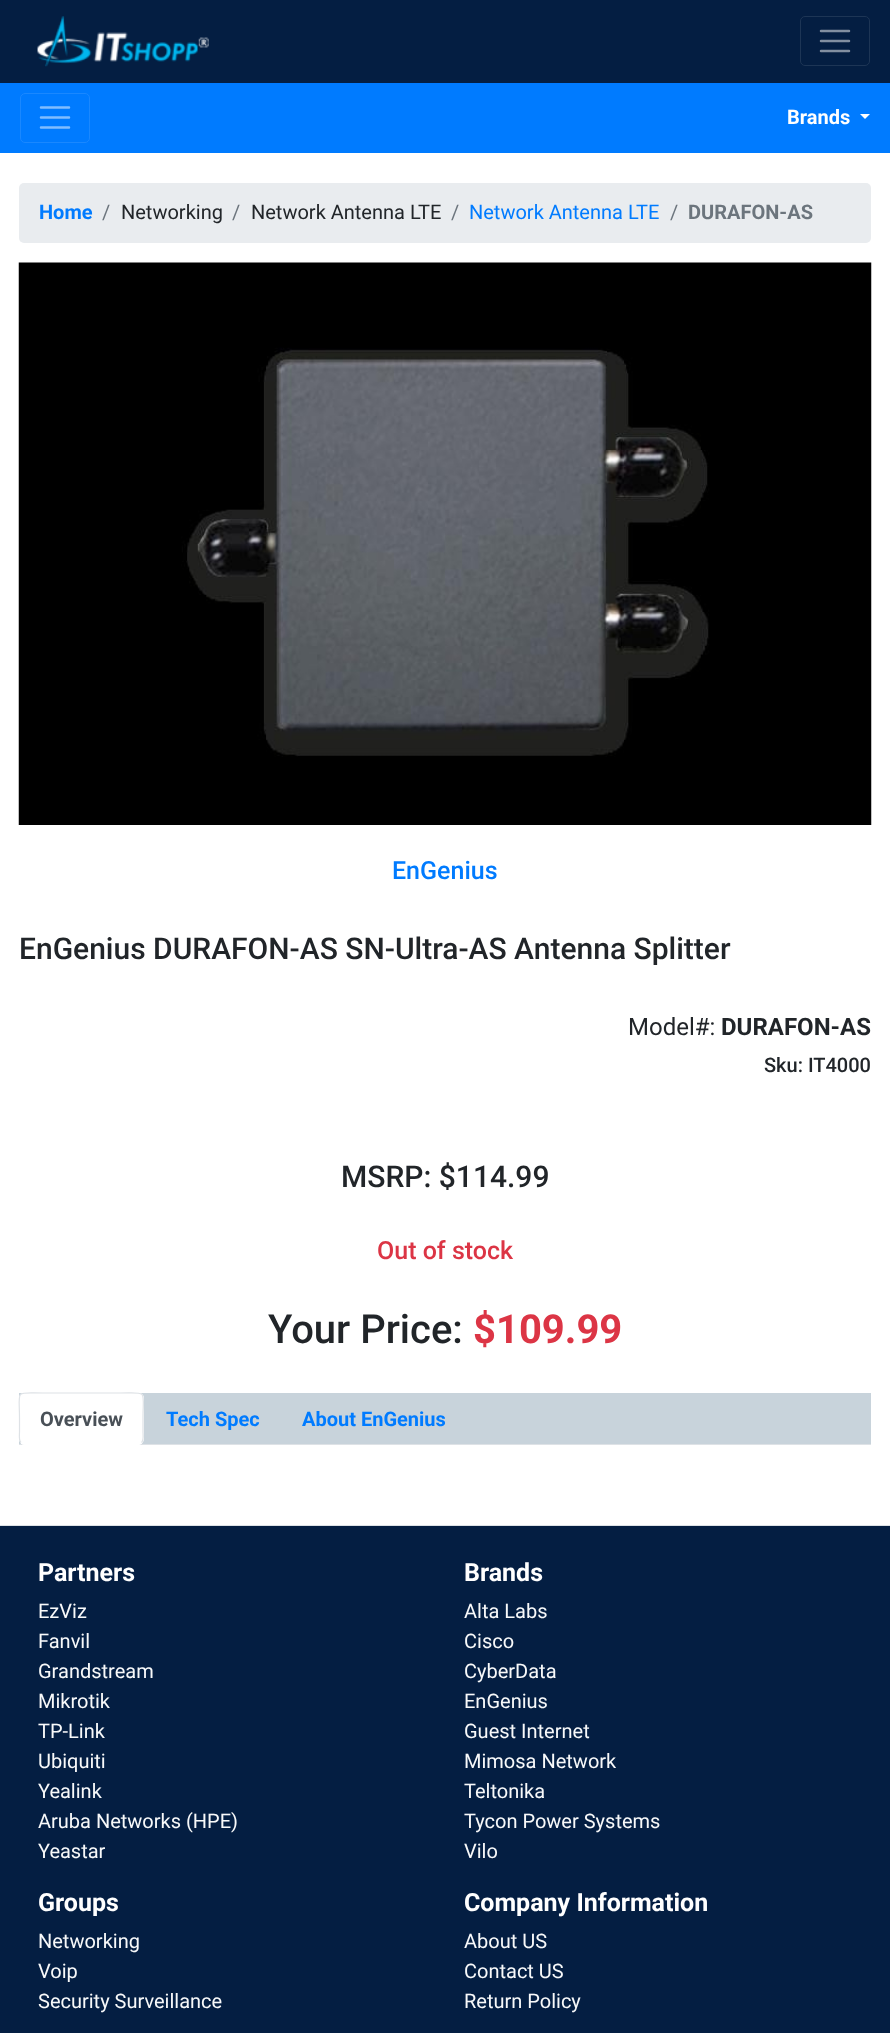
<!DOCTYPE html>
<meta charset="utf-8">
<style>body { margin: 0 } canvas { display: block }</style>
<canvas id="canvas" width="890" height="2033"></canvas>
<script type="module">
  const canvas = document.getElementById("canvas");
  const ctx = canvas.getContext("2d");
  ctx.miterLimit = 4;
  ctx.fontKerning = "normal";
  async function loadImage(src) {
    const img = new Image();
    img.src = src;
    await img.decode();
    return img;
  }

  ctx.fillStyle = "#ffffff";
  ctx.fillRect(0, 0, 890, 2033);
  ctx.fillStyle = "#041e42";
  ctx.fillRect(0, 0, 890, 83);
  ctx.drawImage(await loadImage("img1.png"), 37, 16, 172, 51);
  ctx.beginPath();
  ctx.roundRect(800.5, 16.5, 69, 49, 4.5);
  ctx.strokeStyle = "#1d3555";
  ctx.stroke();
  ctx.beginPath();
  ctx.moveTo(821, 31);
  ctx.lineTo(849, 31);
  ctx.moveTo(821, 41);
  ctx.lineTo(849, 41);
  ctx.moveTo(821, 51);
  ctx.lineTo(849, 51);
  ctx.strokeStyle = "#828fa1";
  ctx.lineWidth = 2.5;
  ctx.lineCap = "round";
  ctx.stroke();
  ctx.fillStyle = "#007bff";
  ctx.fillRect(0, 83, 890, 70);
  ctx.beginPath();
  ctx.roundRect(20.5, 93.5, 69, 49, 4.5);
  ctx.strokeStyle = "#1a88ff";
  ctx.lineWidth = 1;
  ctx.stroke();
  ctx.beginPath();
  ctx.moveTo(41, 107.5);
  ctx.lineTo(69, 107.5);
  ctx.moveTo(41, 117.5);
  ctx.lineTo(69, 117.5);
  ctx.moveTo(41, 127.5);
  ctx.lineTo(69, 127.5);
  ctx.strokeStyle = "#80bdff";
  ctx.lineWidth = 2.5;
  ctx.stroke();
  ctx.font = "bold 20px Roboto";
  ctx.fillStyle = "#ffffff";
  ctx.fillText("Brands", 787, 124);
  ctx.beginPath();
  ctx.moveTo(860, 114);
  ctx.lineTo(870, 114);
  ctx.lineTo(865, 119);
  ctx.closePath();
  ctx.fill();
  ctx.fillStyle = "#e9ecef";
  ctx.beginPath();
  ctx.roundRect(19, 183, 852, 60, 5);
  ctx.fill();
  ctx.fillStyle = "#007bff";
  ctx.fillText("Home", 39, 219);
  ctx.font = "20px Roboto";
  ctx.fillStyle = "#6c757d";
  ctx.fillText("/", 102, 219);
  ctx.fillStyle = "#212529";
  ctx.fillText("Networking", 121, 219);
  ctx.fillStyle = "#6c757d";
  ctx.fillText("/", 232, 219);
  ctx.fillStyle = "#212529";
  ctx.fillText("Network Antenna LTE", 251, 219);
  ctx.fillStyle = "#6c757d";
  ctx.fillText("/", 451, 219);
  ctx.fillStyle = "#007bff";
  ctx.fillText("Network Antenna LTE", 469, 219);
  ctx.fillStyle = "#6c757d";
  ctx.fillText("/", 670, 219);
  ctx.font = "bold 20px Roboto";
  ctx.fillText("DURAFON-AS", 688, 219);
  ctx.drawImage(await loadImage("img2.png"), 18, 262, 854, 563);
  ctx.font = "500 25px Roboto";
  ctx.fillStyle = "#007bff";
  ctx.fillText("EnGenius", 392, 879);
  ctx.font = "500 30px Roboto";
  ctx.fillStyle = "#212529";
  ctx.fillText("EnGenius DURAFON-AS SN-Ultra-AS Antenna Splitter", 19, 959);
  ctx.font = "24px Roboto";
  ctx.fillText("Model#:", 628, 1035);
  ctx.font = "bold 24px Roboto";
  ctx.fillText("DURAFON-AS", 721, 1035);
  ctx.font = "500 20px Roboto";
  ctx.fillText("Sku: IT4000", 764, 1072);
  ctx.font = "500 30px Roboto";
  ctx.fillText("MSRP: $114.99", 341, 1187);
  ctx.font = "500 25px Roboto";
  ctx.fillStyle = "#dc3545";
  ctx.fillText("Out of stock", 377, 1259);
  ctx.font = "500 40px Roboto";
  ctx.fillStyle = "#212529";
  ctx.fillText("Your Price:", 268, 1343);
  ctx.font = "bold 40px Roboto";
  ctx.fillStyle = "#dc3545";
  ctx.fillText("$109.99", 473, 1343);
  ctx.fillStyle = "#c8d3db";
  ctx.fillRect(19, 1393, 852, 51);
  ctx.fillStyle = "#dee2e6";
  ctx.fillRect(19, 1444, 852, 1);
  ctx.fillStyle = "#ffffff";
  ctx.beginPath();
  ctx.roundRect(19, 1393, 125, 52, [5, 5, 6, 6]);
  ctx.fill();
  ctx.beginPath();
  ctx.moveTo(141.5, 1442.5);
  ctx.bezierCurveTo(140.5, 1444, 139, 1444.5, 137.5, 1444.5);
  ctx.lineTo(25, 1444.5);
  ctx.bezierCurveTo(23.5, 1444.5, 22, 1444, 21, 1442.5);
  ctx.strokeStyle = "#ffffff";
  ctx.lineWidth = 1.2;
  ctx.lineCap = "butt";
  ctx.stroke();
  ctx.beginPath();
  ctx.moveTo(21, 1442.5);
  ctx.bezierCurveTo(18.5, 1440, 19.5, 1435, 19.5, 1432);
  ctx.lineTo(19.5, 1418);
  ctx.bezierCurveTo(19.5, 1389, 14, 1393, 43, 1393);
  ctx.lineTo(119.5, 1393);
  ctx.bezierCurveTo(148.5, 1393, 143, 1389, 143, 1418);
  ctx.lineTo(143, 1432);
  ctx.bezierCurveTo(143, 1435, 144, 1440, 141.5, 1442.5);
  ctx.strokeStyle = "#dee2e6";
  ctx.stroke();
  ctx.font = "bold 20px Roboto";
  ctx.fillStyle = "#495057";
  ctx.fillText("Overview", 40, 1426);
  ctx.fillStyle = "#007bff";
  ctx.fillText("Tech Spec", 166, 1426);
  ctx.fillText("About EnGenius", 302, 1426);
  ctx.fillStyle = "#041e42";
  ctx.fillRect(0, 1526, 890, 507);
  ctx.fillStyle = "#dee2e6";
  ctx.fillRect(0, 1525, 890, 1);
  ctx.font = "bold 25px Roboto";
  ctx.fillStyle = "#ffffff";
  ctx.fillText("Partners", 38, 1581);
  ctx.font = "20px Roboto";
  ctx.fillStyle = "#f8f9fa";
  ctx.fillText("EzViz", 38, 1618);
  ctx.fillText("Fanvil", 38, 1648);
  ctx.fillText("Grandstream", 38, 1678);
  ctx.fillText("Mikrotik", 38, 1708);
  ctx.fillText("TP-Link", 38, 1738);
  ctx.fillText("Ubiquiti", 38, 1768);
  ctx.fillText("Yealink", 38, 1798);
  ctx.fillText("Aruba Networks (HPE)", 38, 1828);
  ctx.fillText("Yeastar", 38, 1858);
  ctx.font = "bold 25px Roboto";
  ctx.fillStyle = "#ffffff";
  ctx.fillText("Brands", 464, 1581);
  ctx.font = "20px Roboto";
  ctx.fillStyle = "#f8f9fa";
  ctx.fillText("Alta Labs", 464, 1618);
  ctx.fillText("Cisco", 464, 1648);
  ctx.fillText("CyberData", 464, 1678);
  ctx.fillText("EnGenius", 464, 1708);
  ctx.fillText("Guest Internet", 464, 1738);
  ctx.fillText("Mimosa Network", 464, 1768);
  ctx.fillText("Teltonika", 464, 1798);
  ctx.fillText("Tycon Power Systems", 464, 1828);
  ctx.fillText("Vilo", 464, 1858);
  ctx.font = "bold 25px Roboto";
  ctx.fillStyle = "#ffffff";
  ctx.fillText("Groups", 38, 1911);
  ctx.font = "20px Roboto";
  ctx.fillStyle = "#f8f9fa";
  ctx.fillText("Networking", 38, 1948);
  ctx.fillText("Voip", 38, 1978);
  ctx.fillText("Security Surveillance", 38, 2008);
  ctx.font = "bold 25px Roboto";
  ctx.fillStyle = "#ffffff";
  ctx.fillText("Company Information", 464, 1911);
  ctx.font = "20px Roboto";
  ctx.fillStyle = "#f8f9fa";
  ctx.fillText("About US", 464, 1948);
  ctx.fillText("Contact US", 464, 1978);
  ctx.fillText("Return Policy", 464, 2008);
</script>
